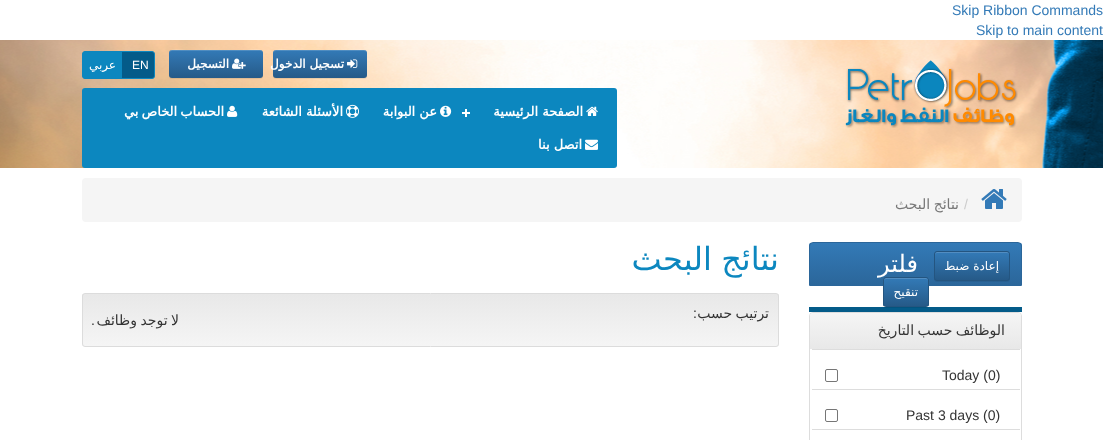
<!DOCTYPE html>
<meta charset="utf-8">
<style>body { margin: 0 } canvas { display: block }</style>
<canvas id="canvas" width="1103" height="440"></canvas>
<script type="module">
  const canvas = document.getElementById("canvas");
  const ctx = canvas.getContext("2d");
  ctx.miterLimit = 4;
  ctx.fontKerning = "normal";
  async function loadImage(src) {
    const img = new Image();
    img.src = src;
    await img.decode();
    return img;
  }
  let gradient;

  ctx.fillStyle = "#ffffff";
  ctx.fillRect(0, 0, 1103, 440);
  ctx.font = "14px Liberation Sans";
  ctx.fillStyle = "#337ab7";
  ctx.fillText("Skip Ribbon Commands", 952, 15);
  ctx.fillText("Skip to main content", 976, 35);
  ctx.drawImage(await loadImage("img1.png"), 0, 40, 1103, 128);
  ctx.drawImage(await loadImage("img2.png"), 845, 60, 173, 68);
  ctx.fillStyle = "rgba(0, 0, 0, 0.07)";
  ctx.filter = "blur(0.5px)";
  ctx.beginPath();
  ctx.roundRect(273, 51, 94, 28, 3);
  ctx.fill();
  ctx.filter = "none";
  gradient = ctx.createLinearGradient(320, 50, 320, 78);
  gradient.addColorStop(0, "#337ab7");
  gradient.addColorStop(1, "#265a88");
  ctx.fillStyle = gradient;
  ctx.beginPath();
  ctx.roundRect(273, 50, 94, 28, 3);
  ctx.fill();
  ctx.fillStyle = "rgba(255, 255, 255, 0.15)";
  ctx.beginPath();
  ctx.moveTo(276, 51);
  ctx.lineTo(364, 51);
  ctx.bezierCurveTo(366, 51, 367, 52, 367, 54);
  ctx.bezierCurveTo(367, 46, 353, 50, 349, 50);
  ctx.lineTo(291, 50);
  ctx.bezierCurveTo(287, 50, 273, 46, 273, 54);
  ctx.bezierCurveTo(273, 52, 274, 51, 276, 51);
  ctx.closePath();
  ctx.fill();
  ctx.drawImage(await loadImage("img3.png"), 347, 59, 11, 9);
  ctx.direction = "rtl";
  ctx.font = "bold 12px DejaVu Sans";
  ctx.fillStyle = "#ffffff";
  ctx.fillText("تسجيل الدخول", 344, 68);
  ctx.fillStyle = "rgba(0, 0, 0, 0.07)";
  ctx.filter = "blur(0.5px)";
  ctx.beginPath();
  ctx.roundRect(169, 51, 94, 28, 3);
  ctx.fill();
  ctx.filter = "none";
  gradient = ctx.createLinearGradient(216, 50, 216, 78);
  gradient.addColorStop(0, "#337ab7");
  gradient.addColorStop(1, "#265a88");
  ctx.fillStyle = gradient;
  ctx.beginPath();
  ctx.roundRect(169, 50, 94, 28, 3);
  ctx.fill();
  ctx.fillStyle = "rgba(255, 255, 255, 0.15)";
  ctx.beginPath();
  ctx.moveTo(172, 51);
  ctx.lineTo(260, 51);
  ctx.bezierCurveTo(262, 51, 263, 52, 263, 54);
  ctx.bezierCurveTo(263, 46, 249, 50, 245, 50);
  ctx.lineTo(187, 50);
  ctx.bezierCurveTo(183, 50, 169, 46, 169, 54);
  ctx.bezierCurveTo(169, 52, 170, 51, 172, 51);
  ctx.closePath();
  ctx.fill();
  ctx.drawImage(await loadImage("img4.png"), 232, 58, 14, 11);
  ctx.fillStyle = "#ffffff";
  ctx.fillText("التسجيل", 229, 68);
  ctx.fillStyle = "#045b89";
  ctx.beginPath();
  ctx.roundRect(82.5, 51.5, 72, 27, 2.5);
  ctx.fill();
  ctx.strokeStyle = "#0c87bf";
  ctx.stroke();
  ctx.direction = "ltr";
  ctx.font = "12px Liberation Sans";
  ctx.fillStyle = "#ffffff";
  ctx.fillText("EN", 132, 69);
  ctx.fillStyle = "#0c87bf";
  ctx.fillRect(83, 52, 39, 26);
  ctx.direction = "rtl";
  ctx.font = "12px DejaVu Sans";
  ctx.fillStyle = "#ffffff";
  ctx.fillText("عربي", 116, 69);
  ctx.fillStyle = "#0c87bf";
  ctx.beginPath();
  ctx.roundRect(82, 88, 535, 80, 3);
  ctx.fill();
  ctx.drawImage(await loadImage("img5.png"), 586, 106, 12, 10);
  ctx.font = "bold 13px DejaVu Sans";
  ctx.fillStyle = "#ffffff";
  ctx.fillText("الصفحة الرئيسية", 583, 116);
  ctx.fillRect(465, 109, 2, 8);
  ctx.drawImage(await loadImage("img6.png"), 440, 105, 12, 12);
  ctx.fillText("عن البوابة", 437, 116);
  ctx.fillRect(462, 112, 8, 2);
  ctx.drawImage(await loadImage("img7.png"), 346, 104, 13, 14);
  ctx.fillText("الأسئلة الشائعة", 343, 116);
  ctx.drawImage(await loadImage("img8.png"), 227, 105, 11, 12);
  ctx.wordSpacing = "-1px";
  ctx.fillText("الحساب الخاص بي", 224, 116);
  ctx.drawImage(await loadImage("img9.png"), 585, 139, 13, 11);
  ctx.wordSpacing = "0px";
  ctx.fillText("اتصل بنا", 582, 149);
  ctx.fillStyle = "#f5f5f5";
  ctx.beginPath();
  ctx.roundRect(82, 178, 940, 44, 4);
  ctx.fill();
  ctx.drawImage(await loadImage("img10.png"), 981, 189, 26, 20);
  ctx.direction = "ltr";
  ctx.font = "14px Liberation Sans";
  ctx.fillStyle = "#cccccc";
  ctx.fillText("/", 964, 209);
  ctx.wordSpacing = "-1px";
  ctx.direction = "rtl";
  ctx.font = "14px DejaVu Sans";
  ctx.fillStyle = "#777777";
  ctx.fillText("نتائج البحث", 959, 209);
  ctx.save();
  ctx.beginPath();
  ctx.roundRect(809, 242, 213, 44, [4, 4, 0, 0]);
  ctx.clip();
  gradient = ctx.createLinearGradient(916, 243, 916, 285);
  gradient.addColorStop(0, "#337ab7");
  gradient.addColorStop(1, "#2b669a");
  ctx.fillStyle = gradient;
  ctx.fillRect(809, 243, 213, 42);
  ctx.restore();
  ctx.beginPath();
  ctx.roundRect(809.5, 242.5, 212, 43, [3.5, 3.5, 0, 0]);
  ctx.strokeStyle = "#2b669a";
  ctx.stroke();
  ctx.fillStyle = "rgba(0, 0, 0, 0.07)";
  ctx.filter = "blur(0.5px)";
  ctx.beginPath();
  ctx.roundRect(934, 252, 76, 30, 3);
  ctx.fill();
  ctx.filter = "none";
  ctx.save();
  ctx.beginPath();
  ctx.roundRect(934, 251, 76, 30, 3);
  ctx.clip();
  gradient = ctx.createLinearGradient(972, 252, 972, 280);
  gradient.addColorStop(0, "#337ab7");
  gradient.addColorStop(1, "#265a88");
  ctx.fillStyle = gradient;
  ctx.fillRect(934, 252, 76, 28);
  ctx.restore();
  ctx.fillStyle = "#528dc1";
  ctx.beginPath();
  ctx.moveTo(937, 253);
  ctx.lineTo(1007, 253);
  ctx.bezierCurveTo(1008, 253, 1009, 254, 1009, 255);
  ctx.bezierCurveTo(1009, 249, 999, 252, 995, 252);
  ctx.lineTo(949, 252);
  ctx.bezierCurveTo(945, 252, 935, 249, 935, 255);
  ctx.bezierCurveTo(935, 254, 936, 253, 937, 253);
  ctx.closePath();
  ctx.fill();
  ctx.beginPath();
  ctx.roundRect(934.5, 251.5, 75, 29, 2.5);
  ctx.strokeStyle = "#245580";
  ctx.stroke();
  ctx.wordSpacing = "0px";
  ctx.font = "12px DejaVu Sans";
  ctx.fillStyle = "#ffffff";
  ctx.fillText("إعادة ضبط", 999, 270);
  ctx.fillStyle = "#045b89";
  ctx.fillRect(809, 307, 213, 5);
  ctx.fillStyle = "rgba(0, 0, 0, 0.07)";
  ctx.filter = "blur(0.5px)";
  ctx.beginPath();
  ctx.roundRect(883, 278, 46, 30, 3);
  ctx.fill();
  ctx.filter = "none";
  ctx.save();
  ctx.beginPath();
  ctx.roundRect(883, 277, 46, 30, 3);
  ctx.clip();
  gradient = ctx.createLinearGradient(906, 278, 906, 306);
  gradient.addColorStop(0, "#337ab7");
  gradient.addColorStop(1, "#265a88");
  ctx.fillStyle = gradient;
  ctx.fillRect(883, 278, 46, 28);
  ctx.restore();
  ctx.fillStyle = "#528dc1";
  ctx.beginPath();
  ctx.moveTo(886, 279);
  ctx.lineTo(926, 279);
  ctx.bezierCurveTo(927, 279, 928, 280, 928, 281);
  ctx.bezierCurveTo(928, 276, 923, 278, 919, 278);
  ctx.lineTo(893, 278);
  ctx.bezierCurveTo(889, 278, 884, 276, 884, 281);
  ctx.bezierCurveTo(884, 280, 885, 279, 886, 279);
  ctx.closePath();
  ctx.fill();
  ctx.beginPath();
  ctx.roundRect(883.5, 277.5, 45, 29, 2.5);
  ctx.stroke();
  ctx.font = "24px DejaVu Sans";
  ctx.fillStyle = "#ffffff";
  ctx.fillText("فلتر", 918, 272);
  ctx.font = "12px DejaVu Sans";
  ctx.fillText("تنقيح", 918, 296);
  ctx.beginPath();
  ctx.roundRect(809.5, 312.5, 212, 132, 3.5);
  ctx.strokeStyle = "#dddddd";
  ctx.stroke();
  gradient = ctx.createLinearGradient(916, 313, 916, 349);
  gradient.addColorStop(0, "#f5f5f5");
  gradient.addColorStop(1, "#e8e8e8");
  ctx.fillStyle = gradient;
  ctx.beginPath();
  ctx.roundRect(810, 313, 211, 36, [3, 3, 0, 0]);
  ctx.fill();
  ctx.wordSpacing = "-1px";
  ctx.font = "14px DejaVu Sans";
  ctx.fillStyle = "#333333";
  ctx.fillText("الوظائف حسب التاريخ", 1005, 335);
  ctx.fillStyle = "#dddddd";
  ctx.fillRect(812, 349, 208, 1);
  ctx.wordSpacing = "0px";
  ctx.direction = "ltr";
  ctx.font = "14px Liberation Sans";
  ctx.fillStyle = "#333333";
  ctx.fillText("Today (0)", 942, 380);
  ctx.beginPath();
  ctx.roundRect(825.5, 369.5, 12, 12, 1.5);
  ctx.strokeStyle = "#767676";
  ctx.stroke();
  ctx.fillStyle = "#dddddd";
  ctx.fillRect(812, 389, 208, 1);
  ctx.fillStyle = "#333333";
  ctx.fillText("Past 3 days (0)", 906, 420);
  ctx.beginPath();
  ctx.roundRect(825.5, 409.5, 12, 12, 1.5);
  ctx.stroke();
  ctx.fillStyle = "#dddddd";
  ctx.fillRect(812, 429, 208, 1);
  ctx.wordSpacing = "-1px";
  ctx.direction = "rtl";
  ctx.font = "32px DejaVu Sans";
  ctx.fillStyle = "#0c87bf";
  ctx.fillText("نتائج البحث", 779, 270);
  ctx.save();
  ctx.beginPath();
  ctx.roundRect(82, 293, 697, 54, 3);
  ctx.clip();
  gradient = ctx.createLinearGradient(431, 294, 431, 346);
  gradient.addColorStop(0, "#e8e8e8");
  gradient.addColorStop(1, "#f5f5f5");
  ctx.fillStyle = gradient;
  ctx.fillRect(82, 294, 697, 52);
  ctx.restore();
  ctx.beginPath();
  ctx.roundRect(82.5, 293.5, 696, 53, 2.5);
  ctx.strokeStyle = "#dcdcdc";
  ctx.stroke();
  ctx.font = "14px DejaVu Sans";
  ctx.fillStyle = "#333333";
  ctx.fillText("ترتيب حسب", 769, 318);
  ctx.wordSpacing = "0px";
  ctx.font = "14px Liberation Sans";
  ctx.fillText(":", 697, 318);
  ctx.wordSpacing = "-1px";
  ctx.font = "14px DejaVu Sans";
  ctx.fillText("لا توجد وظائف", 179, 325);
  ctx.wordSpacing = "0px";
  ctx.font = "14px Liberation Sans";
  ctx.fillText(".", 95, 325);
</script>
